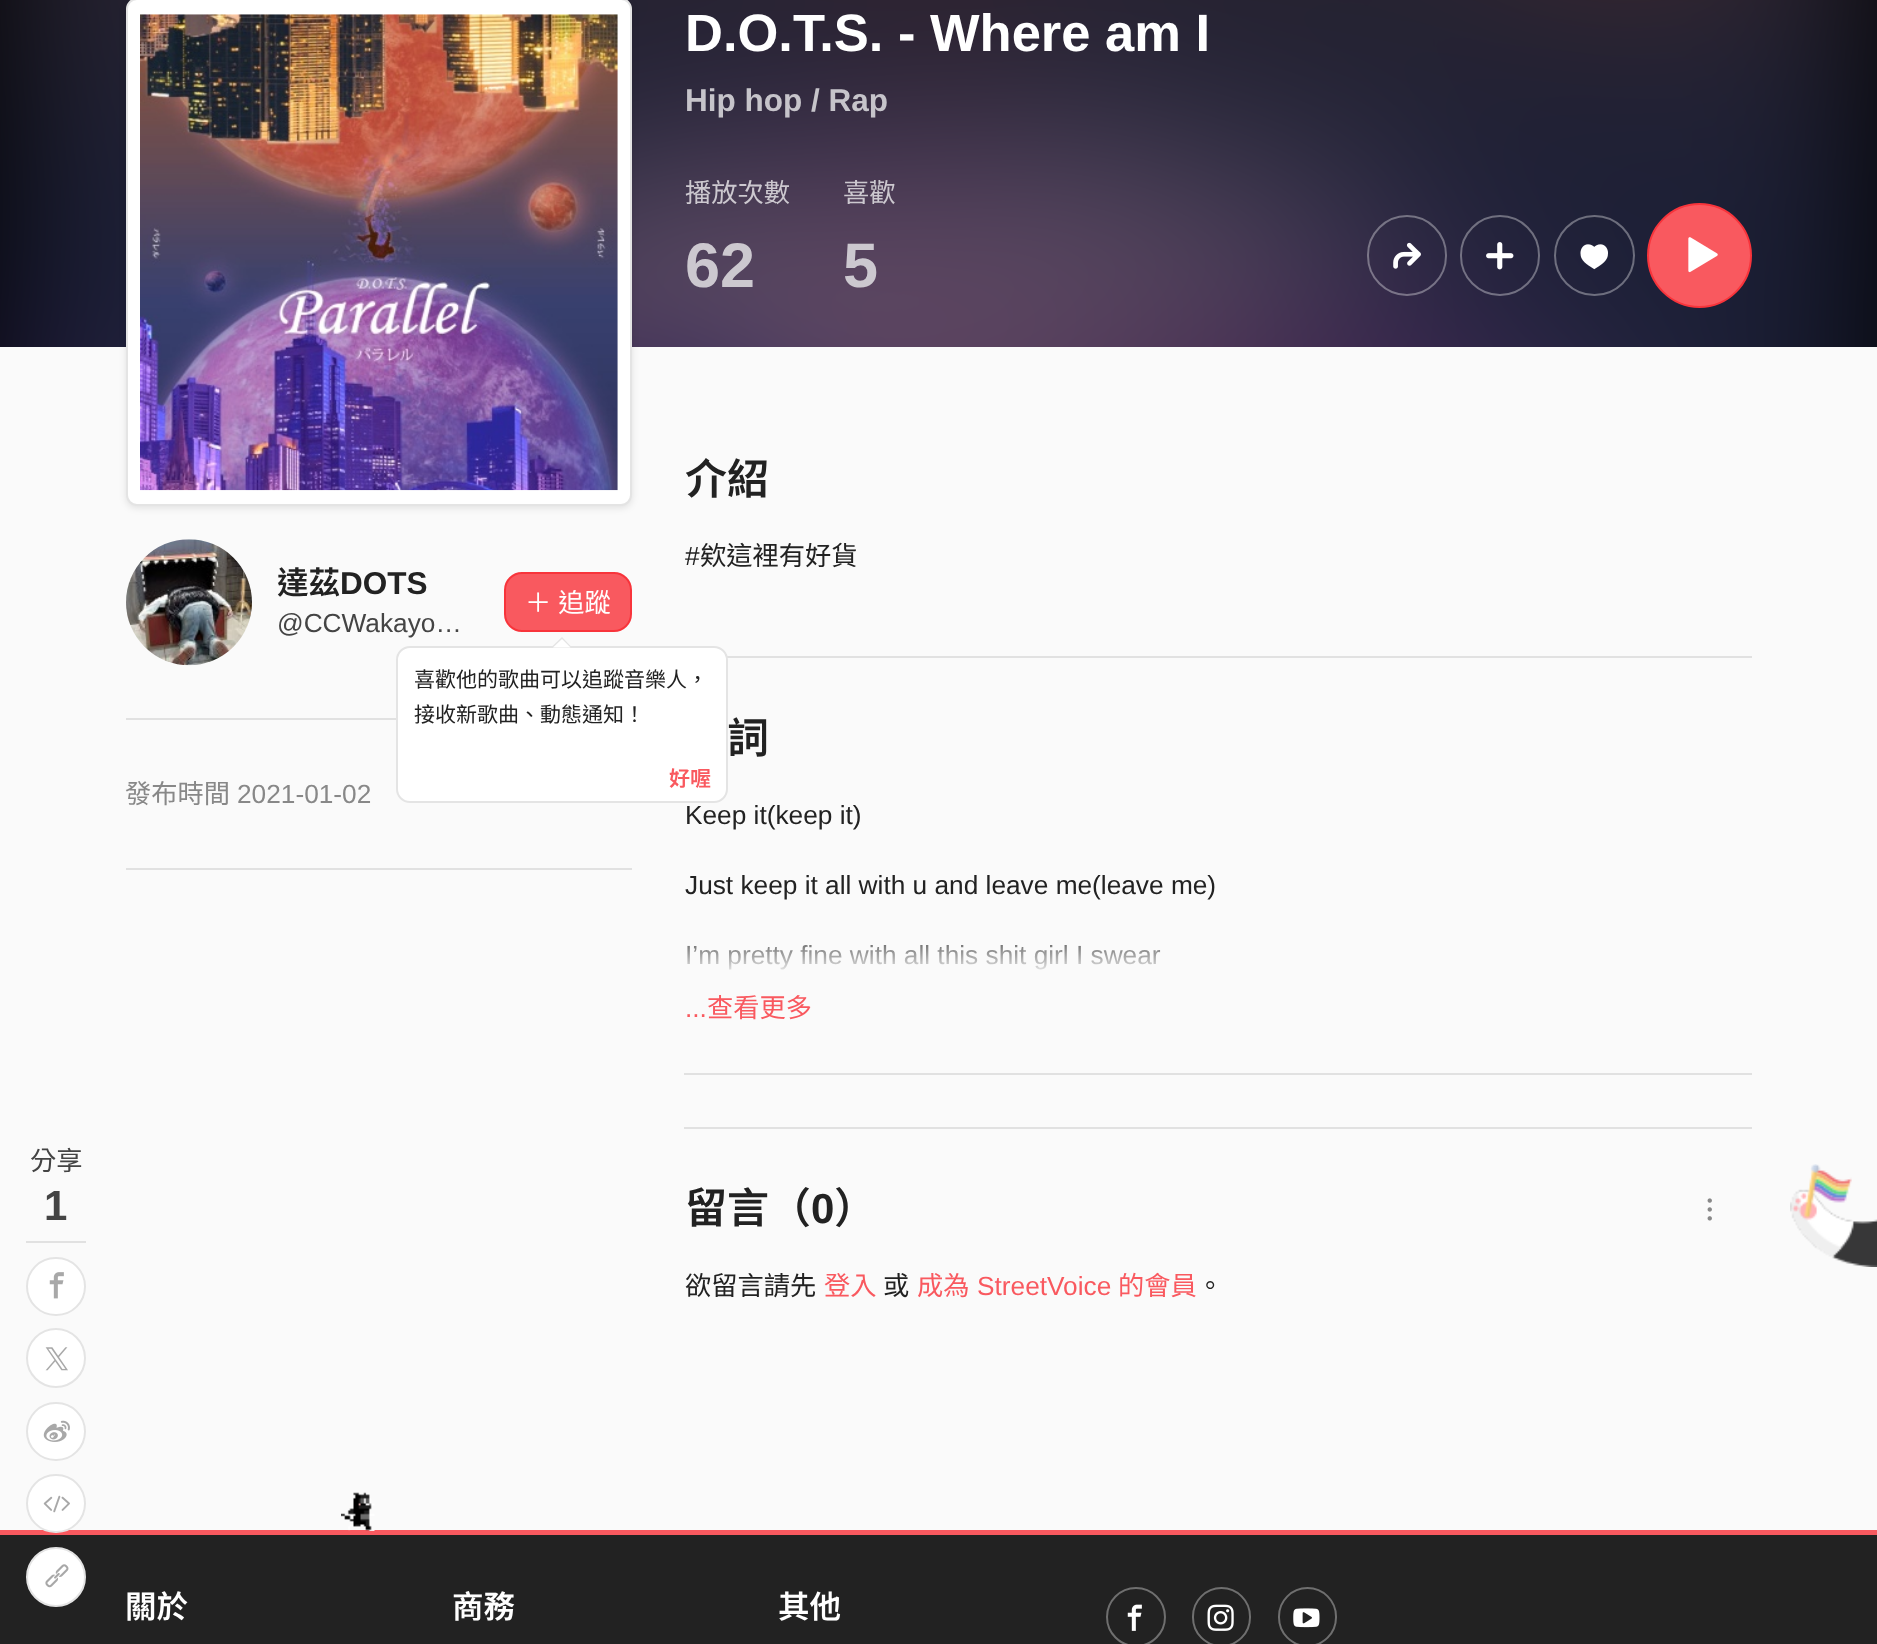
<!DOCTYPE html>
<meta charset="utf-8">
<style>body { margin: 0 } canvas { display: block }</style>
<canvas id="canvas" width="1877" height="1644"></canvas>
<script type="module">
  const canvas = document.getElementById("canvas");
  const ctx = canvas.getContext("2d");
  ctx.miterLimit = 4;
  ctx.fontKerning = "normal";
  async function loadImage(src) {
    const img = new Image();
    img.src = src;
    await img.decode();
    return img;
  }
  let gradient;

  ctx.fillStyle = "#fafafa";
  ctx.fillRect(0, 0, 1877, 1644);
  ctx.fillStyle = "#000000";
  ctx.fillRect(0, 0, 1877, 347);
  ctx.drawImage(await loadImage("img1.png"), 0, 0, 1877, 347);
  ctx.fillStyle = "rgba(0, 0, 0, 0.1)";
  ctx.filter = "blur(3.5px)";
  ctx.beginPath();
  ctx.roundRect(126, 0, 506, 508, 11);
  ctx.fill();
  ctx.filter = "none";
  ctx.fillStyle = "#ffffff";
  ctx.beginPath();
  ctx.roundRect(127, -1, 504, 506, 10);
  ctx.fill();
  ctx.strokeStyle = "#e4e4e4";
  ctx.lineWidth = 2;
  ctx.stroke();
  ctx.drawImage(await loadImage("img2.png"), 140, 14, 478, 477);
  ctx.font = "bold 52.5px Liberation Sans";
  ctx.fillText("D.O.T.S. - Where am I", 685, 51);
  ctx.font = "bold 31.5px Liberation Sans";
  ctx.fillStyle = "#c6c4ca";
  ctx.fillText("Hip hop / Rap", 685, 111);
  ctx.font = "26.25px Noto Sans TC";
  ctx.fillStyle = "#ccc8cf";
  ctx.fillText("播放次數", 685, 202);
  ctx.font = "bold 63px Liberation Sans";
  ctx.fillText("62", 685, 287);
  ctx.font = "26.25px Noto Sans TC";
  ctx.fillText("喜歡", 843, 202);
  ctx.font = "bold 63px Liberation Sans";
  ctx.fillText("5", 843, 287);
  ctx.beginPath();
  ctx.roundRect(1368, 216, 78, 79, 39);
  ctx.strokeStyle = "rgba(255, 255, 255, 0.35)";
  ctx.stroke();
  ctx.drawImage(await loadImage("img3.png"), 1393, 242, 28, 27);
  ctx.beginPath();
  ctx.roundRect(1461, 216, 78, 79, 39);
  ctx.stroke();
  ctx.drawImage(await loadImage("img4.png"), 1486, 242, 28, 28);
  ctx.beginPath();
  ctx.arc(1594.5, 255.5, 39.5, 0, Math.PI * 2);
  ctx.stroke();
  ctx.drawImage(await loadImage("img5.png"), 1580, 244, 28, 26);
  ctx.fillStyle = "#f9595f";
  ctx.beginPath();
  ctx.arc(1699.5, 255.5, 51.5, 0, Math.PI * 2);
  ctx.fill();
  ctx.strokeStyle = "#f8343b";
  ctx.stroke();
  ctx.drawImage(await loadImage("img6.png"), 1688, 237, 30, 36);
  ctx.font = "26.25px Noto Sans TC";
  ctx.fillStyle = "#444444";
  ctx.fillText("分享", 30, 1170);
  ctx.font = "bold 42px Liberation Sans";
  ctx.fillText("1", 44, 1220);
  ctx.fillStyle = "#e1e1e1";
  ctx.fillRect(26, 1241, 60, 2);
  ctx.fillStyle = "#ffffff";
  ctx.beginPath();
  ctx.roundRect(27, 1258, 58, 57, 28.5);
  ctx.fill();
  ctx.strokeStyle = "#e4e4e4";
  ctx.stroke();
  ctx.drawImage(await loadImage("img7.png"), 49, 1272, 15, 27);
  ctx.beginPath();
  ctx.arc(56, 1358, 29, 0, Math.PI * 2);
  ctx.fill();
  ctx.stroke();
  ctx.drawImage(await loadImage("img8.png"), 45, 1347, 23, 24);
  ctx.beginPath();
  ctx.roundRect(27, 1403, 58, 57, 28.5);
  ctx.fill();
  ctx.stroke();
  ctx.drawImage(await loadImage("img9.png"), 43, 1420, 27, 22);
  ctx.fillStyle = "#f9595f";
  ctx.fillRect(0, 1530, 1877, 5);
  ctx.fillStyle = "#ffffff";
  ctx.beginPath();
  ctx.roundRect(27, 1475, 58, 57, 28.5);
  ctx.fill();
  ctx.stroke();
  ctx.drawImage(await loadImage("img10.png"), 43, 1495, 27, 18);
  ctx.fillStyle = "#222222";
  ctx.fillRect(0, 1535, 1877, 109);
  ctx.fillStyle = "#ffffff";
  ctx.beginPath();
  ctx.arc(56, 1577, 29, 0, Math.PI * 2);
  ctx.fill();
  ctx.stroke();
  ctx.drawImage(await loadImage("img11.png"), 45, 1564, 24, 24);
  ctx.fillStyle = "#e1e1e1";
  ctx.fillRect(126, 718, 270, 2);
  ctx.drawImage(await loadImage("img12.png"), 126, 539, 126, 127);
  ctx.font = "600 31.5px Noto Sans TC";
  ctx.fillStyle = "#222222";
  ctx.fillText("達茲", 277, 594);
  ctx.font = "bold 31.5px Liberation Sans";
  ctx.fillText("DOTS", 340, 594);
  ctx.font = "26.25px Liberation Sans";
  ctx.fillStyle = "#444444";
  ctx.fillText("@CCWakayo…", 277, 632);
  ctx.fillStyle = "#f9595f";
  ctx.beginPath();
  ctx.roundRect(505, 573, 126, 58, 17);
  ctx.fill();
  ctx.strokeStyle = "#f8343b";
  ctx.stroke();
  ctx.wordSpacing = "1px";
  ctx.font = "26.25px Noto Sans TC";
  ctx.fillStyle = "#ffffff";
  ctx.fillText("＋ 追蹤", 525, 612);
  ctx.fillStyle = "#e1e1e1";
  ctx.fillRect(727, 656, 1025, 2);
  ctx.fillStyle = "#ffffff";
  ctx.beginPath();
  ctx.roundRect(397, 647, 330, 155, 13);
  ctx.fill();
  ctx.strokeStyle = "#e4e4e4";
  ctx.stroke();
  ctx.fillStyle = "#e4e4e4";
  ctx.beginPath();
  ctx.moveTo(572, 647.5);
  ctx.lineTo(551, 647.5);
  ctx.lineTo(562, 637);
  ctx.closePath();
  ctx.fill();
  ctx.fillStyle = "#ffffff";
  ctx.beginPath();
  ctx.moveTo(570.5, 647.5);
  ctx.lineTo(553, 647.5);
  ctx.lineTo(562, 639);
  ctx.closePath();
  ctx.fill();
  ctx.wordSpacing = "0px";
  ctx.font = "21px Noto Sans TC";
  ctx.fillStyle = "#222222";
  ctx.fillText("喜歡他的歌曲可以追蹤音樂人，", 414, 687);
  ctx.fillText("接收新歌曲、動態通知！", 414, 722);
  ctx.font = "600 21px Noto Sans TC";
  ctx.fillStyle = "#f9595f";
  ctx.fillText("好喔", 669, 786);
  ctx.font = "26.25px Noto Sans TC";
  ctx.fillStyle = "#888888";
  ctx.fillText("發布時間", 125, 803);
  ctx.font = "26.25px Liberation Sans";
  ctx.fillText("2021-01-02", 237, 803);
  ctx.fillStyle = "#e1e1e1";
  ctx.fillRect(126, 868, 506, 2);
  ctx.font = "600 42px Noto Sans TC";
  ctx.fillStyle = "#222222";
  ctx.fillText("介紹", 685, 494);
  ctx.font = "26.25px Liberation Sans";
  ctx.fillText("#", 685, 565);
  ctx.font = "26.25px Noto Sans TC";
  ctx.fillText("欸這裡有好貨", 700, 565);
  ctx.font = "600 42px Noto Sans TC";
  ctx.fillText("詞", 727, 753);
  ctx.font = "26.25px Liberation Sans";
  ctx.fillText("Keep it(keep it)", 685, 824);
  ctx.fillText("Just keep it all with u and leave me(leave me)", 685, 894);
  ctx.fillText("I’m pretty fine with all this shit girl I swear", 685, 964);
  gradient = ctx.createLinearGradient(1218, 924, 1218, 1029);
  gradient.addColorStop(0, "rgba(250, 250, 250, 0)");
  gradient.addColorStop(0.5, "#fafafa");
  ctx.fillStyle = gradient;
  ctx.fillRect(687, 945, 474, 25);
  ctx.fillStyle = "#f9595f";
  ctx.fillText("...", 685, 1017);
  ctx.font = "26.25px Noto Sans TC";
  ctx.fillText("查看更多", 707, 1017);
  ctx.fillStyle = "#e1e1e1";
  ctx.fillRect(684, 1073, 1068, 2);
  ctx.fillRect(684, 1127, 1068, 2);
  ctx.font = "600 42px Noto Sans TC";
  ctx.fillStyle = "#222222";
  ctx.fillText("留言（", 685, 1223);
  ctx.font = "bold 42px Liberation Sans";
  ctx.fillText("0", 811, 1223);
  ctx.font = "600 42px Noto Sans TC";
  ctx.fillText("）", 834, 1223);
  ctx.drawImage(await loadImage("img13.png"), 1707, 1198, 5, 23);
  ctx.font = "26.25px Noto Sans TC";
  ctx.fillText("欲留言請先", 685, 1295);
  ctx.fillStyle = "#f9595f";
  ctx.fillText("登入", 824, 1295);
  ctx.fillStyle = "#222222";
  ctx.fillText("或", 883, 1295);
  ctx.fillStyle = "#f9595f";
  ctx.fillText("成為", 917, 1295);
  ctx.font = "26.25px Liberation Sans";
  ctx.fillText("StreetVoice", 977, 1295);
  ctx.font = "26.25px Noto Sans TC";
  ctx.fillText("的會員", 1118, 1295);
  ctx.fillStyle = "#222222";
  ctx.fillText("。", 1197, 1295);
  ctx.drawImage(await loadImage("img14.png"), 1790, 1164, 87, 103);
  ctx.drawImage(await loadImage("img15.png"), 341, 1492, 34, 39);
  ctx.font = "600 31.5px Noto Sans TC";
  ctx.fillStyle = "#ffffff";
  ctx.fillText("關於", 125, 1618);
  ctx.fillText("商務", 452, 1618);
  ctx.fillText("其他", 778, 1618);
  ctx.beginPath();
  ctx.arc(1136, 1617, 29, 0, Math.PI * 2);
  ctx.strokeStyle = "#6f6f6f";
  ctx.stroke();
  ctx.drawImage(await loadImage("img16.png"), 1127, 1604, 15, 27);
  ctx.beginPath();
  ctx.roundRect(1193, 1588, 57, 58, 28.5);
  ctx.stroke();
  ctx.drawImage(await loadImage("img17.png"), 1207, 1604, 27, 27);
  ctx.beginPath();
  ctx.roundRect(1279, 1588, 57, 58, 28.5);
  ctx.stroke();
  ctx.drawImage(await loadImage("img18.png"), 1293, 1608, 27, 20);
</script>
